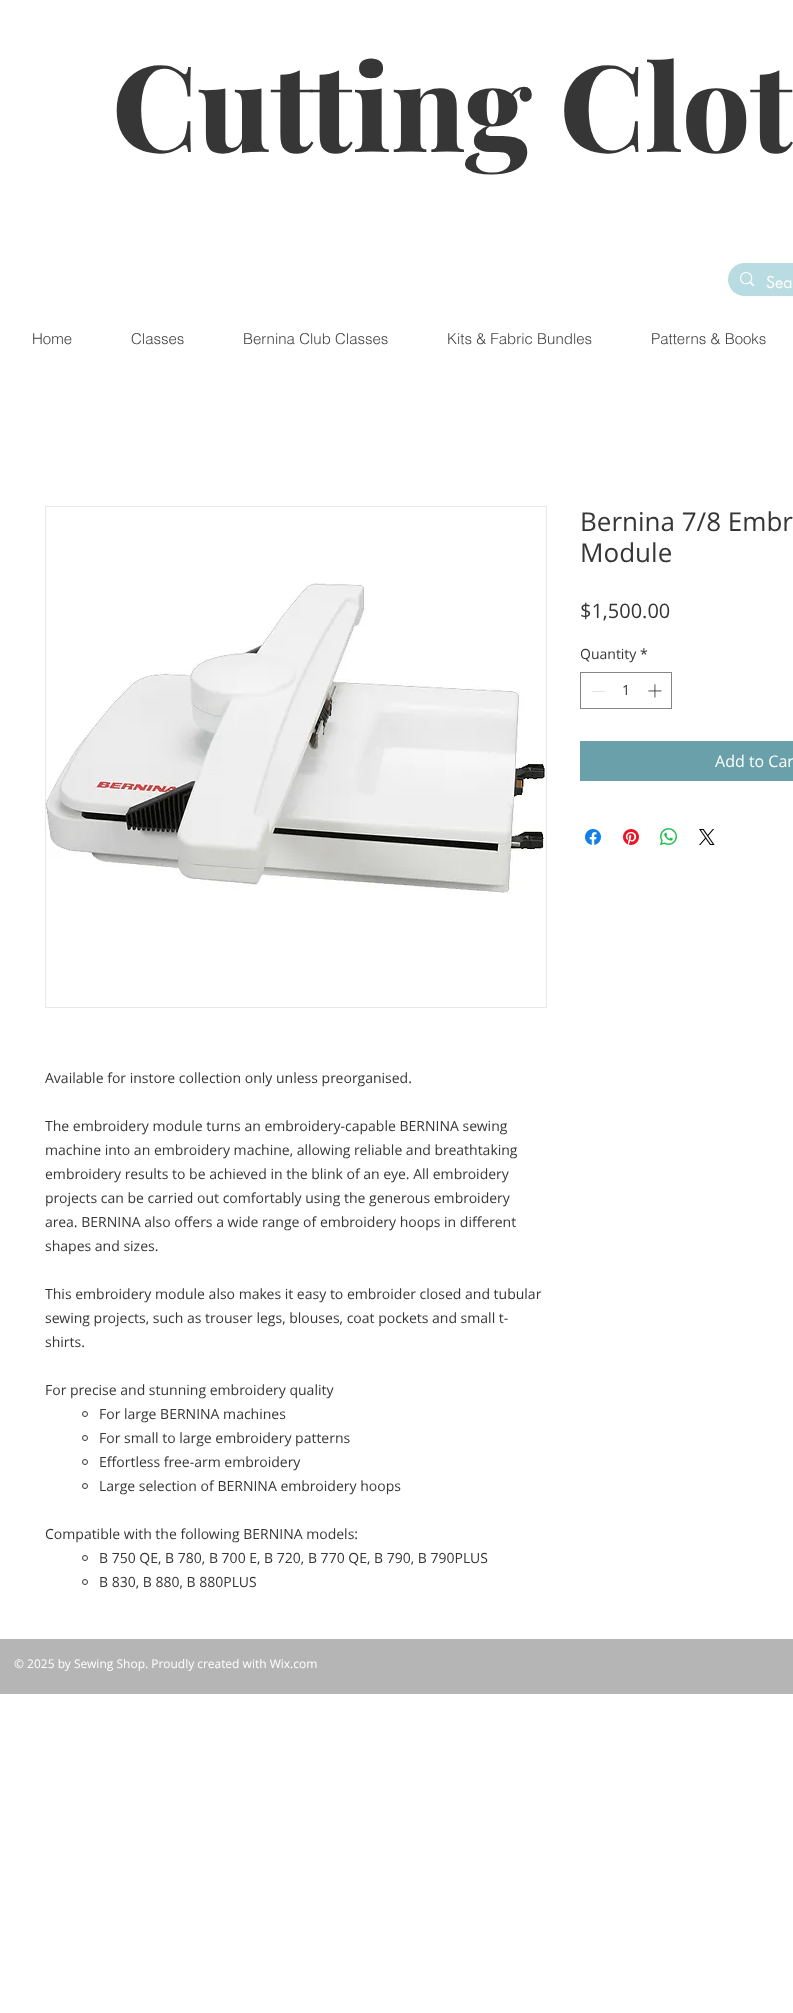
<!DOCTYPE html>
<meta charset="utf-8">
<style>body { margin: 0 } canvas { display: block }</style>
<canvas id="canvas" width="793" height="2013"></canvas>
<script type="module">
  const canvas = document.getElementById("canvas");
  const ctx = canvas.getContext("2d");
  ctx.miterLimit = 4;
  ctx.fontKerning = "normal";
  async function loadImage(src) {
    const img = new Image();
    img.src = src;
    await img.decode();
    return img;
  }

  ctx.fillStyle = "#ffffff";
  ctx.fillRect(0, 0, 793, 2013);
  ctx.font = "800 120px Playfair Display";
  ctx.fillStyle = "#363636";
  ctx.fillText("Cutting Clot", 112, 152);
  ctx.fillStyle = "#b8dce2";
  ctx.beginPath();
  ctx.roundRect(728, 263, 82, 33, 16.5);
  ctx.fill();
  ctx.drawImage(await loadImage("img1.png"), 740, 272, 14, 15);
  ctx.font = "16px futura";
  ctx.fillStyle = "#ffffff";
  ctx.fillText("Sea", 766, 288);
  ctx.font = "300 15px helvetica";
  ctx.fillStyle = "#444444";
  ctx.fillText("Home", 32, 344);
  ctx.fillText("Classes", 131, 344);
  ctx.fillText("Bernina Club Classes", 243, 344);
  ctx.fillText("Kits & Fabric Bundles", 447, 344);
  ctx.fillText("Patterns & Books", 651, 344);
  ctx.font = "26px Open Sans";
  ctx.fillStyle = "#363636";
  ctx.fillText("Bernina 7/8 Embr", 580, 531);
  ctx.fillText("Module", 580, 562);
  ctx.font = "20px Open Sans";
  ctx.fillText("$1,500.00", 580, 618);
  ctx.font = "14px Open Sans";
  ctx.fillText("Quantity", 580, 659);
  ctx.fillText("*", 640, 659);
  ctx.strokeStyle = "#868686";
  ctx.strokeRect(580.5, 672.5, 91, 36);
  ctx.fillStyle = "#e3e3e3";
  ctx.fillRect(592, 691, 13, 1);
  ctx.fillStyle = "#363636";
  ctx.fillText("1", 622, 695);
  ctx.drawImage(await loadImage("img2.png"), 648, 684, 14, 14);
  ctx.fillStyle = "#6aa0a9";
  ctx.fillRect(580, 741, 213, 40);
  ctx.font = "16px Open Sans";
  ctx.fillStyle = "#ffffff";
  ctx.fillText("Add to Car", 715, 767);
  ctx.drawImage(await loadImage("img3.png"), 585, 829, 16, 16);
  ctx.drawImage(await loadImage("img4.png"), 623, 829, 16, 16);
  ctx.drawImage(await loadImage("img5.png"), 660, 828, 17, 17);
  ctx.drawImage(await loadImage("img6.png"), 699, 829, 16, 16);
  ctx.strokeStyle = "#e8e8e8";
  ctx.strokeRect(45.5, 506.5, 501, 501);
  ctx.drawImage(await loadImage("img7.png"), 46, 583, 500, 310);
  ctx.font = "14px Open Sans";
  ctx.fillStyle = "#363636";
  ctx.fillText("Available for instore collection only unless preorganised.", 45, 1083);
  ctx.fillText("The embroidery module turns an embroidery-capable BERNINA sewing", 45, 1131);
  ctx.fillText("machine into an embroidery machine, allowing reliable and breathtaking", 45, 1155);
  ctx.fillText("embroidery results to be achieved in the blink of an eye. All embroidery", 45, 1179);
  ctx.fillText("projects can be carried out comfortably using the generous embroidery", 45, 1203);
  ctx.fillText("area. BERNINA also offers a wide range of embroidery hoops in different", 45, 1227);
  ctx.fillText("shapes and sizes.", 45, 1251);
  ctx.fillText("This embroidery module also makes it easy to embroider closed and tubular", 45, 1299);
  ctx.fillText("sewing projects, such as trouser legs, blouses, coat pockets and small t-", 45, 1323);
  ctx.fillText("shirts.", 45, 1347);
  ctx.fillText("For precise and stunning embroidery quality", 45, 1395);
  ctx.beginPath();
  ctx.arc(85, 1414, 2.5, 0, Math.PI * 2);
  ctx.strokeStyle = "#363636";
  ctx.stroke();
  ctx.fillText("For large BERNINA machines", 99, 1419);
  ctx.beginPath();
  ctx.arc(85, 1438, 2.5, 0, Math.PI * 2);
  ctx.stroke();
  ctx.fillText("For small to large embroidery patterns", 99, 1443);
  ctx.beginPath();
  ctx.arc(85, 1462, 2.5, 0, Math.PI * 2);
  ctx.stroke();
  ctx.fillText("Effortless free-arm embroidery", 99, 1467);
  ctx.beginPath();
  ctx.arc(85, 1486, 2.5, 0, Math.PI * 2);
  ctx.stroke();
  ctx.fillText("Large selection of BERNINA embroidery hoops", 99, 1491);
  ctx.fillText("Compatible with the following BERNINA models:", 45, 1539);
  ctx.beginPath();
  ctx.arc(85, 1558, 2.5, 0, Math.PI * 2);
  ctx.stroke();
  ctx.fillText("B 750 QE, B 780, B 700 E, B 720, B 770 QE, B 790, B 790PLUS", 99, 1563);
  ctx.beginPath();
  ctx.arc(85, 1582, 2.5, 0, Math.PI * 2);
  ctx.stroke();
  ctx.fillText("B 830, B 880, B 880PLUS", 99, 1587);
  ctx.fillStyle = "#b5b5b5";
  ctx.fillRect(0, 1639, 793, 55);
  ctx.font = "12px Open Sans";
  ctx.fillStyle = "#ffffff";
  ctx.fillText("© 2025 by Sewing Shop. Proudly created with Wix.com", 14, 1668);
</script>
